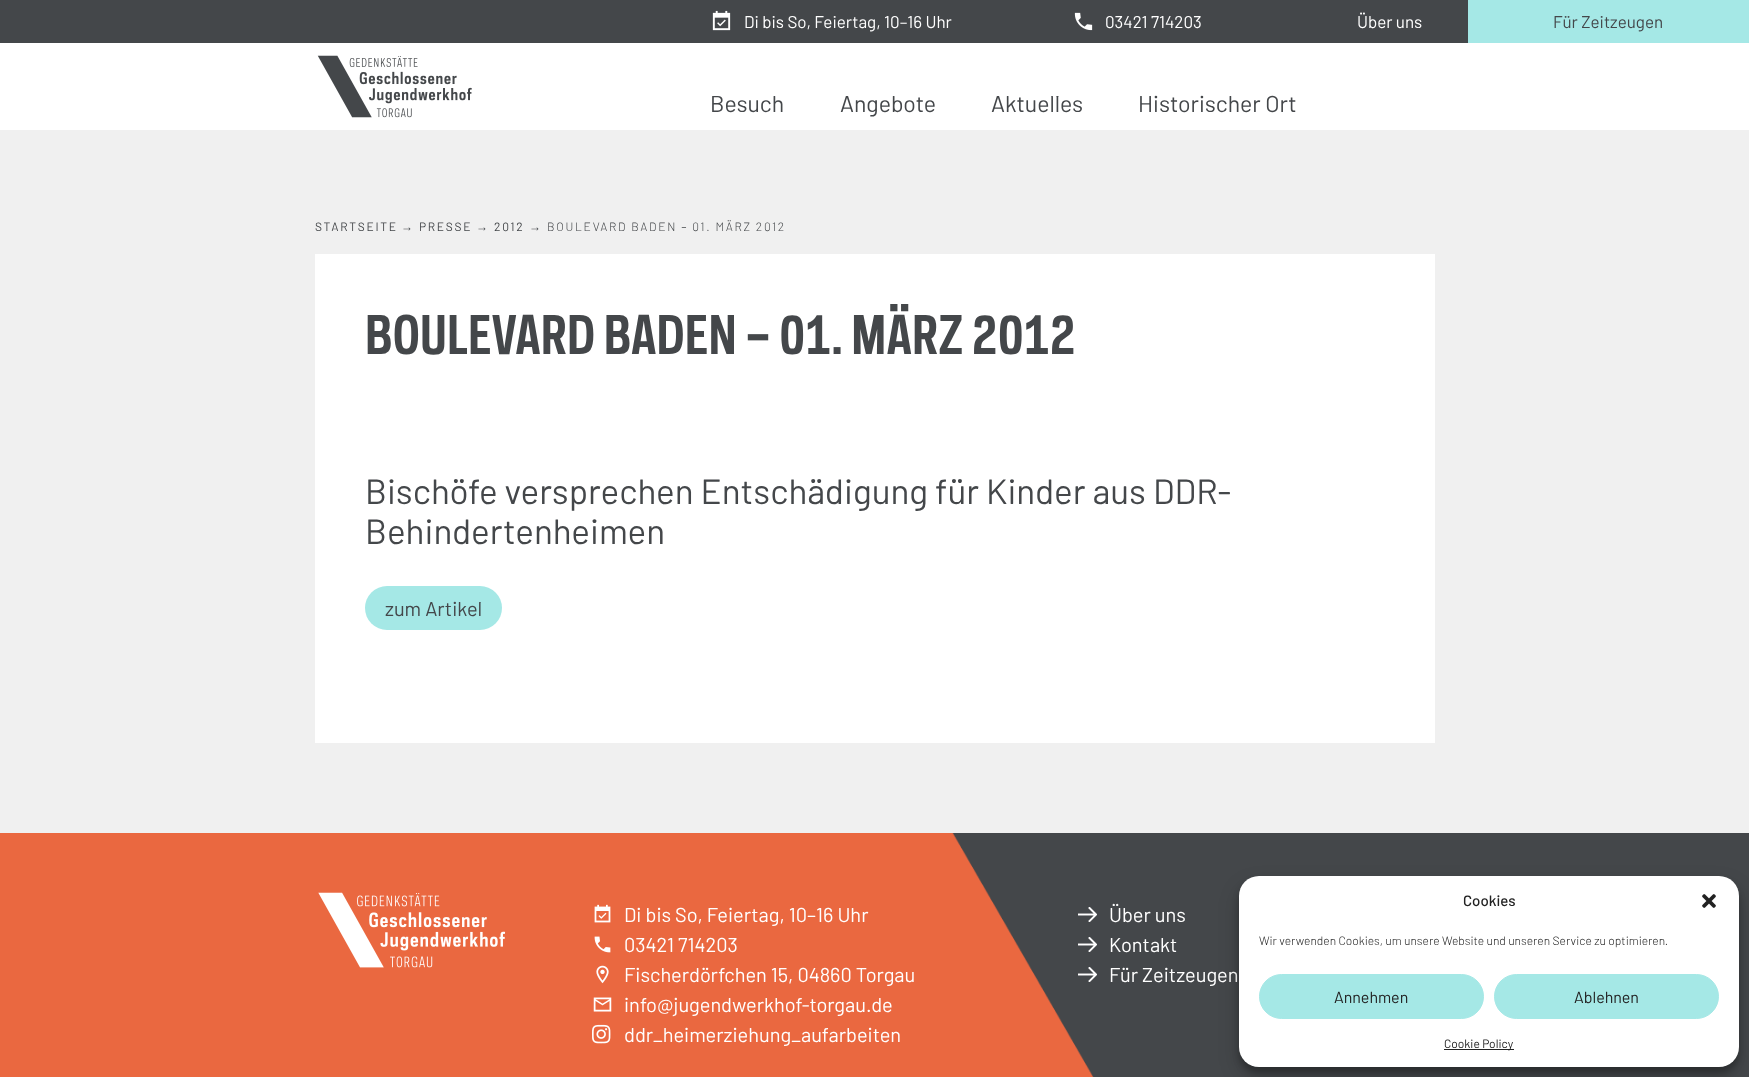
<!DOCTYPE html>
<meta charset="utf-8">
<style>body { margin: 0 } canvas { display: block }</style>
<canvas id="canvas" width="1749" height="1077"></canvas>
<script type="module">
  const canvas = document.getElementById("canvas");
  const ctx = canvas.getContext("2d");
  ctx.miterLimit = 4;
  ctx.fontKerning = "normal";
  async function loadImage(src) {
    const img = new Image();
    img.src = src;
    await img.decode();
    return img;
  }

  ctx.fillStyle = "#ffffff";
  ctx.fillRect(0, 0, 1749, 1077);
  ctx.fillStyle = "#a5e8e6";
  ctx.fillRect(1468, 0, 281, 43);
  ctx.fillStyle = "#44474a";
  ctx.fillRect(0, 0, 1468, 43);
  ctx.drawImage(await loadImage("img1.png"), 712, 10, 19, 21);
  ctx.font = "17px Barlow";
  ctx.fillStyle = "#ffffff";
  ctx.fillText("Di bis So, Feiertag, 10–16 Uhr", 744, 28);
  ctx.drawImage(await loadImage("img2.png"), 1074, 12, 19, 19);
  ctx.fillText("03421 714203", 1105, 28);
  ctx.fillText("Über uns", 1357, 28);
  ctx.fillStyle = "#44474a";
  ctx.fillText("Für Zeitzeugen", 1553, 28);
  ctx.drawImage(await loadImage("img3.png"), 317, 55, 155, 63);
  ctx.font = "23px Barlow";
  ctx.fillText("Besuch", 710, 112);
  ctx.fillText("Angebote", 840, 112);
  ctx.fillText("Aktuelles", 991, 112);
  ctx.fillText("Historischer Ort", 1138, 112);
  ctx.fillStyle = "#f0f0f0";
  ctx.fillRect(0, 130, 1749, 703);
  ctx.letterSpacing = "1.7px";
  ctx.font = "12px Barlow";
  ctx.fillStyle = "#44474a";
  ctx.fillText("STARTSEITE", 315, 231);
  ctx.font = "12px Liberation Sans";
  ctx.fillText("→", 401, 231);
  ctx.font = "12px Barlow";
  ctx.fillText("PRESSE", 419, 231);
  ctx.font = "12px Liberation Sans";
  ctx.fillText("→", 476, 231);
  ctx.font = "12px Barlow";
  ctx.fillText("2012", 494, 231);
  ctx.font = "12px Liberation Sans";
  ctx.fillText("→", 529, 231);
  ctx.font = "300 12px Barlow";
  ctx.fillText("BOULEVARD BADEN – 01. MÄRZ 2012", 547, 231);
  ctx.fillStyle = "#ffffff";
  ctx.fillRect(315, 254, 1120, 489);
  ctx.letterSpacing = "0px";
  ctx.font = "bold 50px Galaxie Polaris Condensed";
  ctx.fillStyle = "#44474a";
  ctx.fillText("BOULEVARD BADEN – 01. MÄRZ 2012", 365, 354);
  ctx.font = "35px Barlow";
  ctx.fillText("Bischöfe versprechen Entschädigung für Kinder aus DDR-", 365, 504);
  ctx.fillText("Behindertenheimen", 365, 544);
  ctx.fillStyle = "#a5e8e6";
  ctx.beginPath();
  ctx.roundRect(365, 586, 137, 44, 22);
  ctx.fill();
  ctx.font = "20px Barlow";
  ctx.fillStyle = "#44474a";
  ctx.fillText("zum Artikel", 385, 616);
  ctx.drawImage(await loadImage("img4.png"), 0, 833, 1749, 244);
  ctx.drawImage(await loadImage("img5.png"), 318, 892, 188, 76);
  ctx.drawImage(await loadImage("img6.png"), 594, 904, 17, 19);
  ctx.fillStyle = "#ffffff";
  ctx.fillText("Di bis So, Feiertag, 10–16 Uhr", 624, 922);
  ctx.drawImage(await loadImage("img7.png"), 594, 936, 17, 17);
  ctx.fillText("03421 714203", 624, 952);
  ctx.drawImage(await loadImage("img8.png"), 596, 965, 13, 19);
  ctx.fillText("Fischerdörfchen 15, 04860 Torgau", 624, 982);
  ctx.drawImage(await loadImage("img9.png"), 593, 997, 19, 15);
  ctx.fillText("info@jugendwerkhof-torgau.de", 624, 1012);
  ctx.drawImage(await loadImage("img10.png"), 592, 1024, 19, 20);
  ctx.fillText("ddr_heimerziehung_aufarbeiten", 624, 1042);
  ctx.drawImage(await loadImage("img11.png"), 1078, 907, 19, 15);
  ctx.fillText("Über uns", 1109, 922);
  ctx.drawImage(await loadImage("img11.png"), 1078, 937, 19, 15);
  ctx.fillText("Kontakt", 1109, 952);
  ctx.drawImage(await loadImage("img11.png"), 1078, 967, 19, 15);
  ctx.fillText("Für Zeitzeugen", 1109, 982);
  ctx.fillStyle = "rgba(0, 0, 0, 0.23)";
  ctx.filter = "blur(3px)";
  ctx.beginPath();
  ctx.roundRect(1239, 882, 500, 191, 20);
  ctx.fill();
  ctx.filter = "none";
  ctx.fillStyle = "rgba(0, 0, 0, 0.19)";
  ctx.filter = "blur(10px)";
  ctx.beginPath();
  ctx.roundRect(1239, 886, 500, 191, 20);
  ctx.fill();
  ctx.filter = "none";
  ctx.fillStyle = "#ffffff";
  ctx.beginPath();
  ctx.roundRect(1239, 876, 500, 191, 20);
  ctx.fill();
  ctx.font = "500 15px Barlow";
  ctx.fillStyle = "#222222";
  ctx.fillText("Cookies", 1463, 906);
  ctx.drawImage(await loadImage("img12.png"), 1702, 894, 14, 14);
  ctx.font = "300 12px Barlow";
  ctx.fillText("Wir verwenden Cookies, um unsere Website und unseren Service zu optimieren.", 1259, 945);
  ctx.fillStyle = "#a5e8e6";
  ctx.beginPath();
  ctx.roundRect(1259.5, 974.5, 224, 44, 22);
  ctx.fill();
  ctx.strokeStyle = "#a5e8e6";
  ctx.stroke();
  ctx.font = "16px Barlow";
  ctx.fillStyle = "#222222";
  ctx.fillText("Annehmen", 1334, 1003);
  ctx.fillStyle = "#a5e8e6";
  ctx.beginPath();
  ctx.roundRect(1494.5, 974.5, 224, 44, 22);
  ctx.fill();
  ctx.stroke();
  ctx.fillStyle = "#222222";
  ctx.fillText("Ablehnen", 1574, 1003);
  ctx.fillRect(1444, 1049, 70, 1);
  ctx.font = "12px Barlow";
  ctx.fillText("Cookie Policy", 1444, 1048);
</script>
